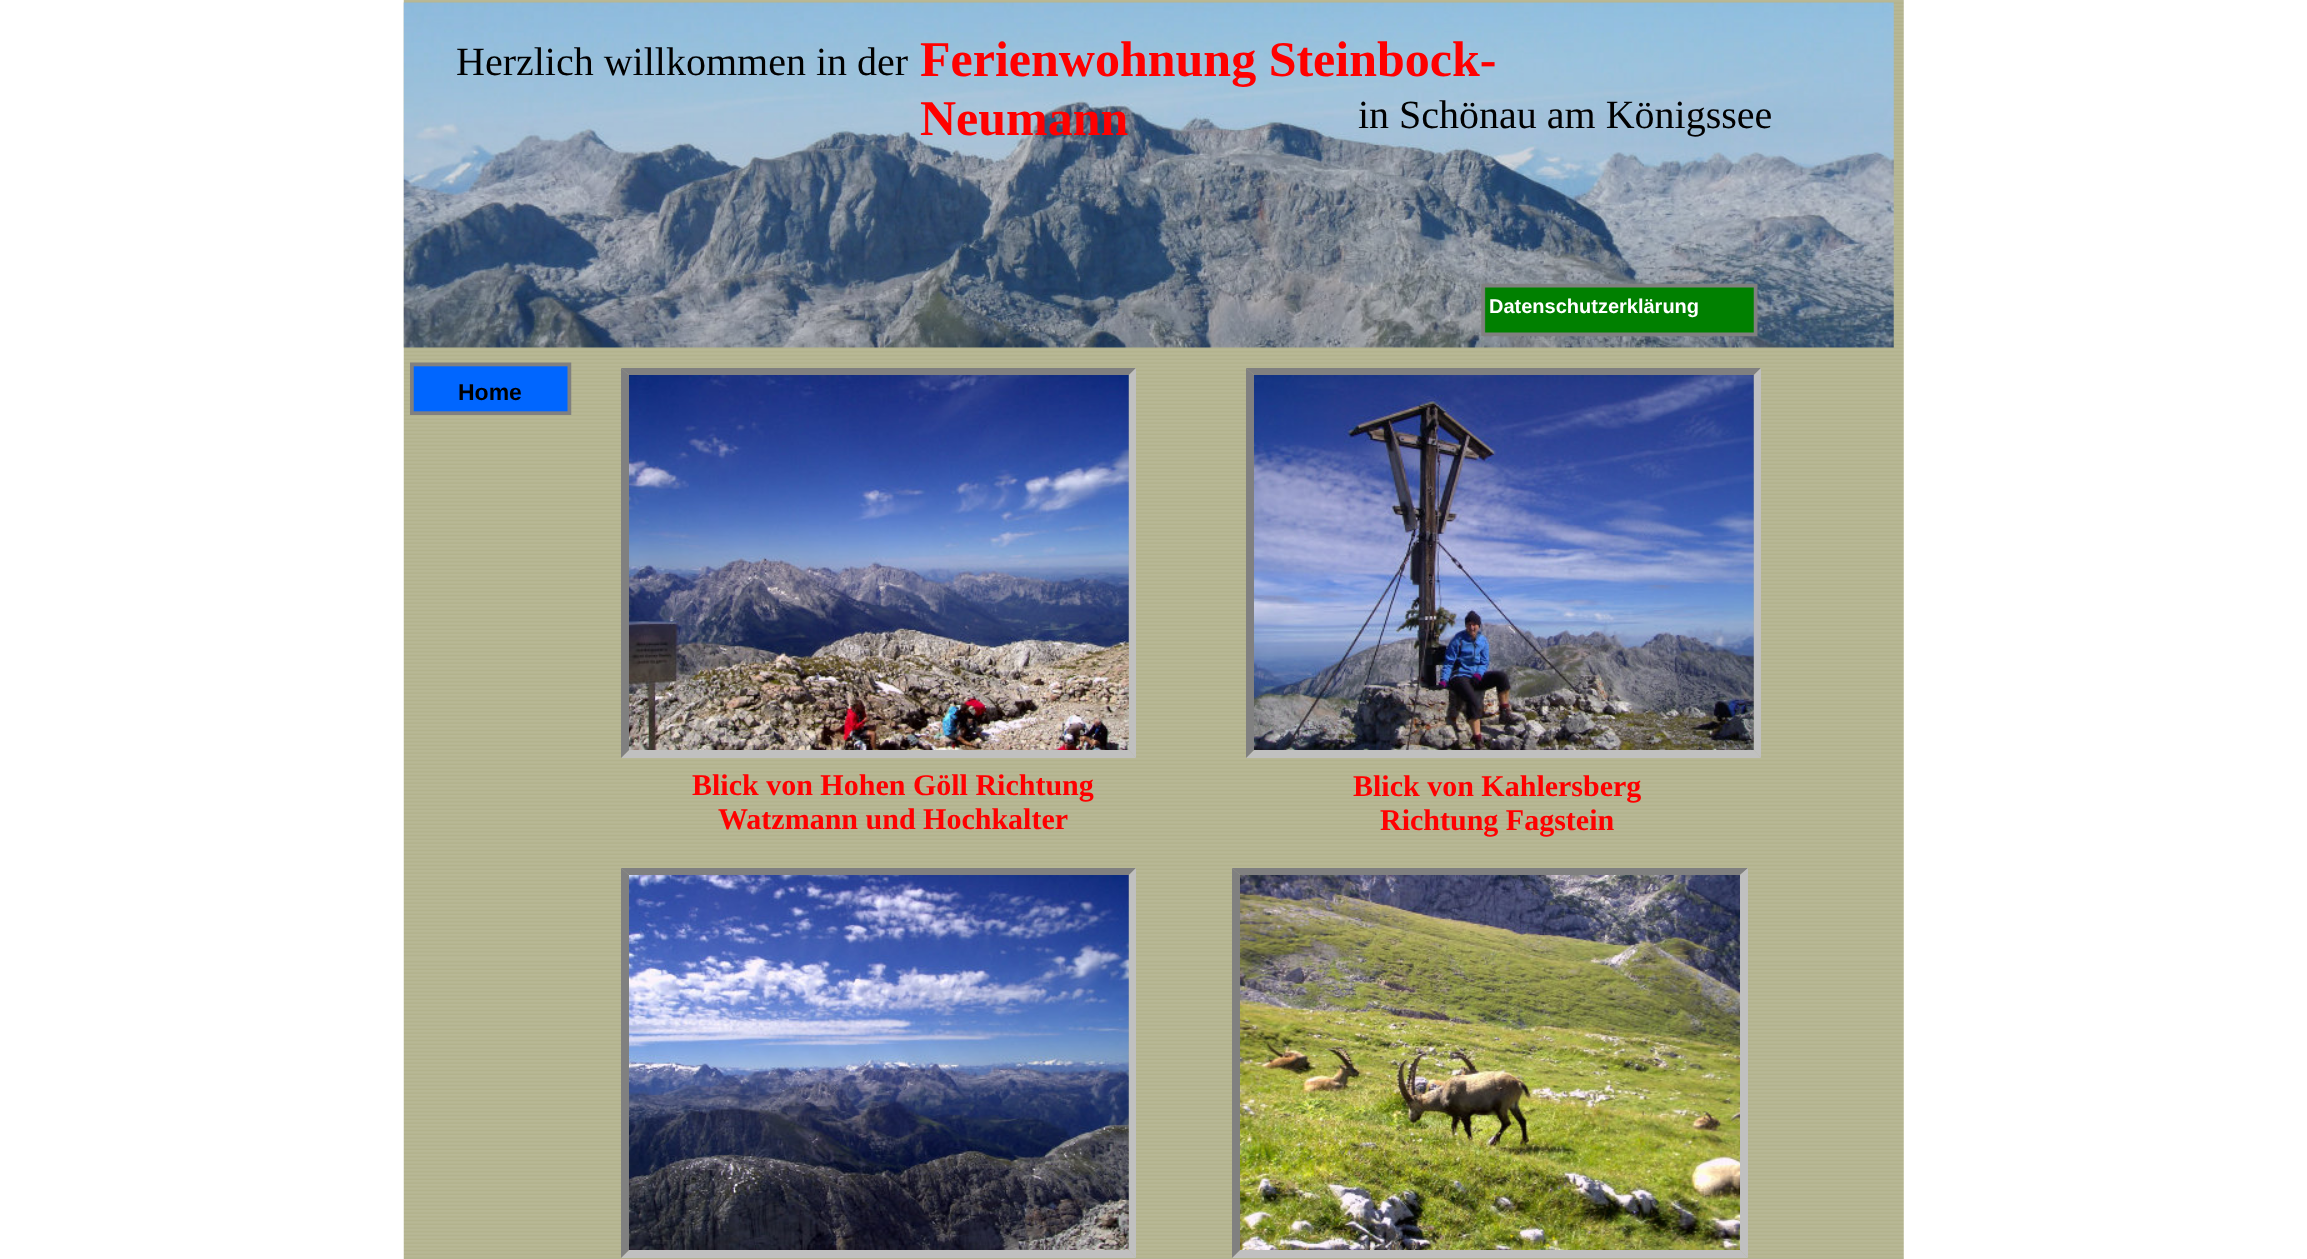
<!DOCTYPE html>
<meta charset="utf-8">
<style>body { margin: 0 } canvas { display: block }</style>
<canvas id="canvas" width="2307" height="1259"></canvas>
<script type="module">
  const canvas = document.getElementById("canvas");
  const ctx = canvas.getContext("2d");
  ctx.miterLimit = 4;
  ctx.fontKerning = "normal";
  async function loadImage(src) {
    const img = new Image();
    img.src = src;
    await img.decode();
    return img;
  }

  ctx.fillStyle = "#ffffff";
  ctx.fillRect(0, 0, 2307, 1259);
  ctx.drawImage(await loadImage("img1.png"), 403, 0, 1501, 1259);
  ctx.drawImage(await loadImage("img2.png"), 403, 2, 1491, 346);
  ctx.font = "40px Liberation Serif";
  ctx.fillStyle = "#000000";
  ctx.fillText("Herzlich willkommen in der", 456, 75);
  ctx.font = "bold 50px Liberation Serif";
  ctx.fillStyle = "#ff0000";
  ctx.fillText("Ferienwohnung Steinbock-", 920, 76);
  ctx.fillText("Neumann", 920, 135);
  ctx.font = "40px Liberation Serif";
  ctx.fillStyle = "#000000";
  ctx.fillText("in Schönau am Königssee", 1358, 128);
  ctx.drawImage(await loadImage("img3.png"), 522, 142, 387, 28);
  ctx.drawImage(await loadImage("img4.png"), 1481, 283, 277, 54);
  ctx.font = "bold 20px Liberation Sans";
  ctx.fillStyle = "#ffffff";
  ctx.fillText("Datenschutzerklärung", 1489, 313);
  ctx.drawImage(await loadImage("img5.png"), 410, 362, 162, 53);
  ctx.drawImage(await loadImage("img6.png"), 629, 375, 500, 375);
  ctx.fillStyle = "#808080";
  ctx.beginPath();
  ctx.moveTo(621, 368);
  ctx.lineTo(1136, 368);
  ctx.lineTo(1129, 375);
  ctx.lineTo(629, 375);
  ctx.closePath();
  ctx.fill();
  ctx.fillStyle = "#c0c0c0";
  ctx.beginPath();
  ctx.moveTo(1136, 368);
  ctx.lineTo(1136, 758);
  ctx.lineTo(1129, 750);
  ctx.lineTo(1129, 375);
  ctx.closePath();
  ctx.fill();
  ctx.beginPath();
  ctx.moveTo(1136, 758);
  ctx.lineTo(621, 758);
  ctx.lineTo(629, 750);
  ctx.lineTo(1129, 750);
  ctx.closePath();
  ctx.fill();
  ctx.fillStyle = "#808080";
  ctx.beginPath();
  ctx.moveTo(621, 758);
  ctx.lineTo(621, 368);
  ctx.lineTo(629, 375);
  ctx.lineTo(629, 750);
  ctx.closePath();
  ctx.fill();
  ctx.drawImage(await loadImage("img7.png"), 1254, 375, 500, 375);
  ctx.beginPath();
  ctx.moveTo(1246, 368);
  ctx.lineTo(1761, 368);
  ctx.lineTo(1754, 375);
  ctx.lineTo(1254, 375);
  ctx.closePath();
  ctx.fill();
  ctx.fillStyle = "#c0c0c0";
  ctx.beginPath();
  ctx.moveTo(1761, 368);
  ctx.lineTo(1761, 758);
  ctx.lineTo(1754, 750);
  ctx.lineTo(1754, 375);
  ctx.closePath();
  ctx.fill();
  ctx.beginPath();
  ctx.moveTo(1761, 758);
  ctx.lineTo(1246, 758);
  ctx.lineTo(1254, 750);
  ctx.lineTo(1754, 750);
  ctx.closePath();
  ctx.fill();
  ctx.fillStyle = "#808080";
  ctx.beginPath();
  ctx.moveTo(1246, 758);
  ctx.lineTo(1246, 368);
  ctx.lineTo(1254, 375);
  ctx.lineTo(1254, 750);
  ctx.closePath();
  ctx.fill();
  ctx.font = "bold 23px Liberation Sans";
  ctx.fillStyle = "#000000";
  ctx.fillText("Home", 458, 400);
  ctx.font = "bold 30px Liberation Serif";
  ctx.fillStyle = "#ff0000";
  ctx.fillText("Blick von Hohen Göll Richtung", 692, 795);
  ctx.fillText("Watzmann und Hochkalter", 718, 829);
  ctx.fillText("Blick von Kahlersberg", 1353, 796);
  ctx.fillText("Richtung Fagstein", 1380, 830);
  ctx.drawImage(await loadImage("img8.png"), 629, 875, 500, 375);
  ctx.fillStyle = "#808080";
  ctx.beginPath();
  ctx.moveTo(621, 868);
  ctx.lineTo(1136, 868);
  ctx.lineTo(1129, 875);
  ctx.lineTo(629, 875);
  ctx.closePath();
  ctx.fill();
  ctx.fillStyle = "#c0c0c0";
  ctx.beginPath();
  ctx.moveTo(1136, 868);
  ctx.lineTo(1136, 1258);
  ctx.lineTo(1129, 1250);
  ctx.lineTo(1129, 875);
  ctx.closePath();
  ctx.fill();
  ctx.beginPath();
  ctx.moveTo(1136, 1258);
  ctx.lineTo(621, 1258);
  ctx.lineTo(629, 1250);
  ctx.lineTo(1129, 1250);
  ctx.closePath();
  ctx.fill();
  ctx.fillStyle = "#808080";
  ctx.beginPath();
  ctx.moveTo(621, 1258);
  ctx.lineTo(621, 868);
  ctx.lineTo(629, 875);
  ctx.lineTo(629, 1250);
  ctx.closePath();
  ctx.fill();
  ctx.drawImage(await loadImage("img9.png"), 1240, 875, 500, 375);
  ctx.beginPath();
  ctx.moveTo(1232, 868);
  ctx.lineTo(1748, 868);
  ctx.lineTo(1740, 875);
  ctx.lineTo(1240, 875);
  ctx.closePath();
  ctx.fill();
  ctx.fillStyle = "#c0c0c0";
  ctx.beginPath();
  ctx.moveTo(1748, 868);
  ctx.lineTo(1748, 1258);
  ctx.lineTo(1740, 1250);
  ctx.lineTo(1740, 875);
  ctx.closePath();
  ctx.fill();
  ctx.beginPath();
  ctx.moveTo(1748, 1258);
  ctx.lineTo(1232, 1258);
  ctx.lineTo(1240, 1250);
  ctx.lineTo(1740, 1250);
  ctx.closePath();
  ctx.fill();
  ctx.fillStyle = "#808080";
  ctx.beginPath();
  ctx.moveTo(1232, 1258);
  ctx.lineTo(1232, 868);
  ctx.lineTo(1240, 875);
  ctx.lineTo(1240, 1250);
  ctx.closePath();
  ctx.fill();
</script>
